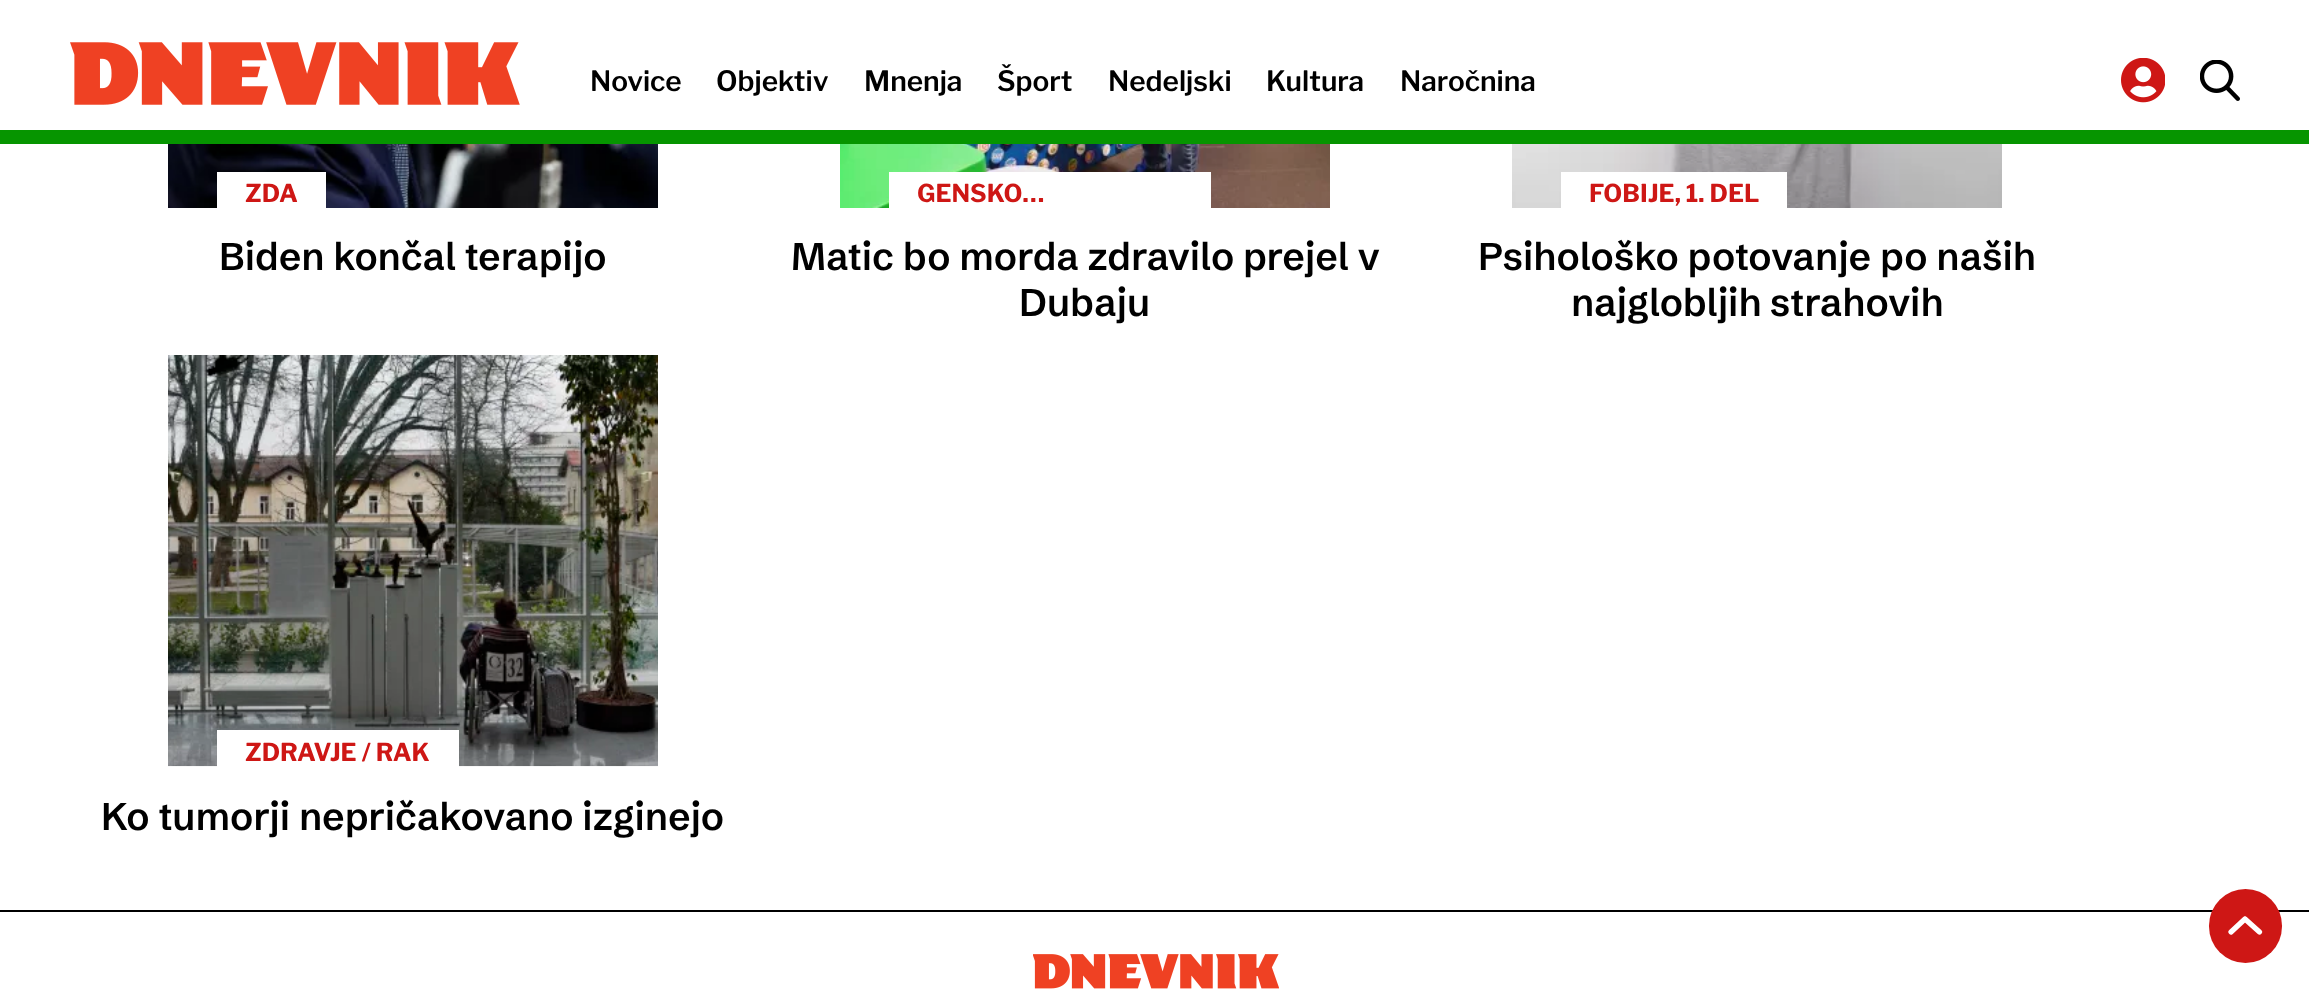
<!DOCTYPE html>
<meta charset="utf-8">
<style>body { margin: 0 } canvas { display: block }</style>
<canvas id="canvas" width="2309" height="990"></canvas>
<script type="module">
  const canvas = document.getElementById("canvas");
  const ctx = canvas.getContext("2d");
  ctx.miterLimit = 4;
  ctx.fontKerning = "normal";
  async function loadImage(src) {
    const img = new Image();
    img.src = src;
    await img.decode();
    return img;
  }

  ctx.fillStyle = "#ffffff";
  ctx.fillRect(0, 0, 2309, 990);
  ctx.fillStyle = "#069500";
  ctx.fillRect(0, 130, 2309, 14);
  ctx.drawImage(await loadImage("img1.png"), 70, 42, 450, 63);
  ctx.font = "600 28px Libre Franklin";
  ctx.fillStyle = "#000000";
  ctx.fillText("Novice", 590, 91);
  ctx.fillText("Objektiv", 716, 91);
  ctx.fillText("Mnenja", 864, 91);
  ctx.fillText("Šport", 997, 91);
  ctx.fillText("Nedeljski", 1108, 91);
  ctx.fillText("Kultura", 1266, 91);
  ctx.fillText("Naročnina", 1400, 91);
  ctx.drawImage(await loadImage("img2.png"), 2121, 58, 44, 45);
  ctx.drawImage(await loadImage("img3.png"), 2200, 60, 40, 41);
  ctx.drawImage(await loadImage("img4.png"), 168, 144, 490, 64);
  ctx.fillStyle = "#ffffff";
  ctx.fillRect(217, 172, 109, 36);
  ctx.font = "bold 24.5px Libre Franklin";
  ctx.fillStyle = "#ce1715";
  ctx.fillText("ZDA", 245, 202);
  ctx.font = "600 38.5px Schibsted Grotesk";
  ctx.fillStyle = "#000000";
  ctx.fillText("Biden končal terapijo", 219, 270);
  ctx.drawImage(await loadImage("img5.png"), 840, 144, 490, 64);
  ctx.fillStyle = "#ffffff";
  ctx.fillRect(889, 172, 322, 36);
  ctx.font = "bold 24.5px Libre Franklin";
  ctx.fillStyle = "#ce1715";
  ctx.fillText("GENSKO…", 917, 202);
  ctx.font = "600 38.5px Schibsted Grotesk";
  ctx.fillStyle = "#000000";
  ctx.fillText("Matic bo morda zdravilo prejel v", 791, 270);
  ctx.fillText("Dubaju", 1019, 316);
  ctx.drawImage(await loadImage("img6.png"), 1512, 144, 490, 64);
  ctx.fillStyle = "#ffffff";
  ctx.fillRect(1561, 172, 226, 36);
  ctx.font = "bold 24.5px Libre Franklin";
  ctx.fillStyle = "#ce1715";
  ctx.fillText("FOBIJE, 1. DEL", 1589, 202);
  ctx.font = "600 38.5px Schibsted Grotesk";
  ctx.fillStyle = "#000000";
  ctx.fillText("Psihološko potovanje po naših", 1478, 270);
  ctx.fillText("najglobljih strahovih", 1571, 316);
  ctx.drawImage(await loadImage("img7.png"), 168, 355, 490, 412);
  ctx.fillStyle = "#ffffff";
  ctx.fillRect(217, 730, 242, 37);
  ctx.font = "bold 24.5px Libre Franklin";
  ctx.fillStyle = "#ce1715";
  ctx.fillText("ZDRAVJE / RAK", 245, 761);
  ctx.font = "600 38.5px Schibsted Grotesk";
  ctx.fillStyle = "#000000";
  ctx.fillText("Ko tumorji nepričakovano izginejo", 101, 830);
  ctx.fillRect(0, 910, 2309, 2);
  ctx.fillStyle = "#ce1715";
  ctx.beginPath();
  ctx.roundRect(2209, 889, 73, 74, 36.5);
  ctx.fill();
  ctx.beginPath();
  ctx.moveTo(2231, 932);
  ctx.lineTo(2245, 919);
  ctx.moveTo(2245, 919);
  ctx.lineTo(2259.5, 932);
  ctx.strokeStyle = "#ffffff";
  ctx.lineWidth = 5.2;
  ctx.lineCap = "round";
  ctx.stroke();
  ctx.drawImage(await loadImage("img8.png"), 1033, 954, 246, 35);
</script>
